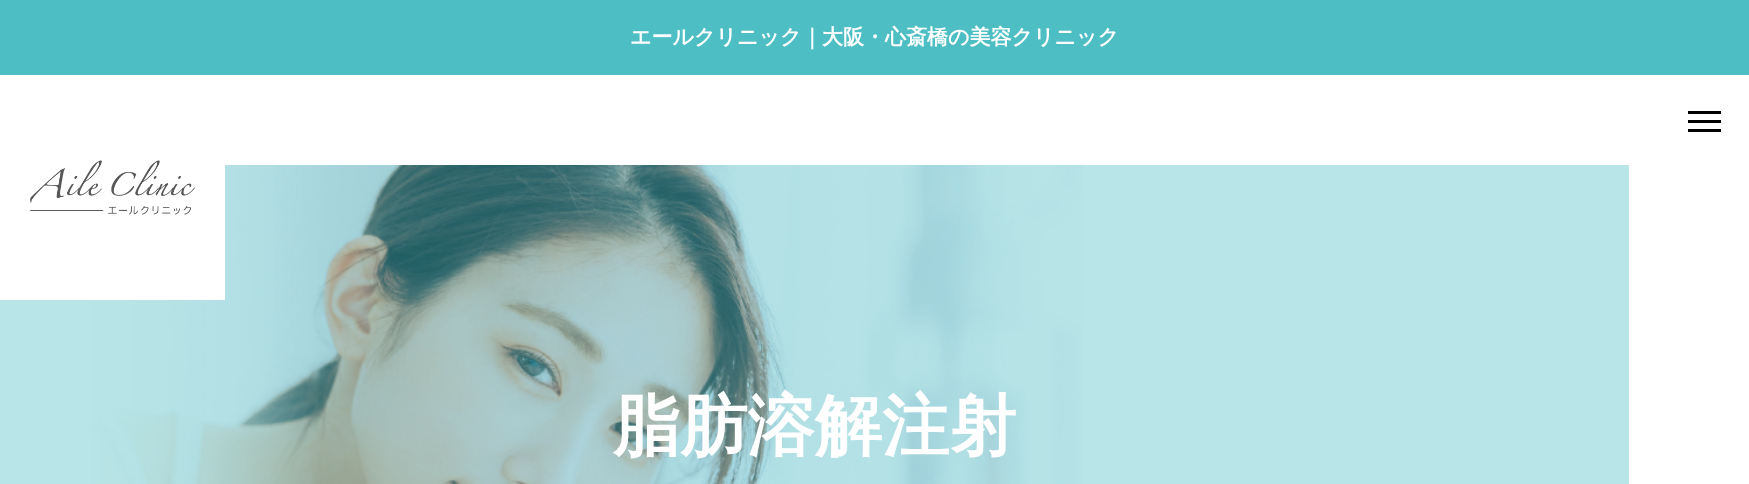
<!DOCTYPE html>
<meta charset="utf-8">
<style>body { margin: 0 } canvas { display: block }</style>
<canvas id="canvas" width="1749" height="484"></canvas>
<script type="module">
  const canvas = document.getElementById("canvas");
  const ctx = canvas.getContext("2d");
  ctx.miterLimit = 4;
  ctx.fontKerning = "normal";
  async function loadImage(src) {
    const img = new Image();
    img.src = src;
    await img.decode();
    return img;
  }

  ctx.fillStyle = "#ffffff";
  ctx.fillRect(0, 0, 1749, 484);
  ctx.fillStyle = "#b8e5e7";
  ctx.fillRect(0, 165, 1629, 319);
  ctx.fillStyle = "#4dbec3";
  ctx.fillRect(0, 0, 1749, 75);
  ctx.font = "bold 21px WenQuanYi Zen Hei";
  ctx.fillStyle = "#ffffff";
  ctx.fillText("エールクリニック｜大阪・心斎橋の美容クリニック", 630, 44);
  ctx.fillStyle = "#000000";
  ctx.fillRect(1688, 111, 33, 3);
  ctx.fillRect(1688, 120, 33, 3);
  ctx.fillRect(1688, 129, 33, 3);
  ctx.drawImage(await loadImage("img2.png"), 91, 165, 992, 319);
  ctx.fillStyle = "#ffffff";
  ctx.fillRect(0, 165, 225, 135);
  ctx.drawImage(await loadImage("img1.png"), 30, 160, 165, 55);
  ctx.font = "bold 67.25px WenQuanYi Zen Hei";
  ctx.fillText("脂肪溶解注射", 613, 449);
</script>
